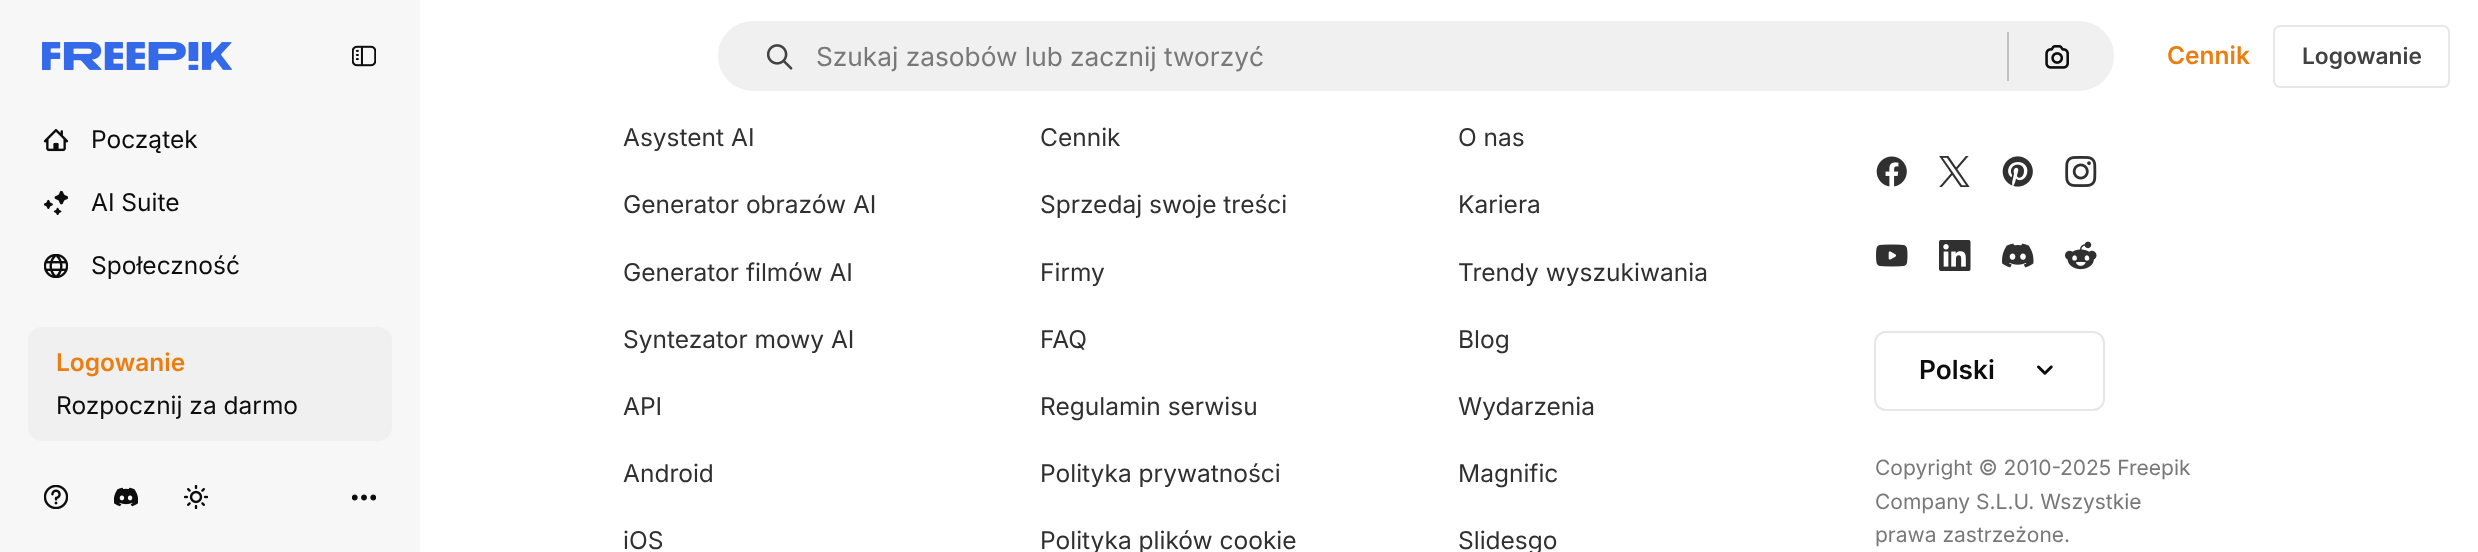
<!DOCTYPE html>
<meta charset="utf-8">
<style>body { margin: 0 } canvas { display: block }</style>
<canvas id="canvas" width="2478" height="552"></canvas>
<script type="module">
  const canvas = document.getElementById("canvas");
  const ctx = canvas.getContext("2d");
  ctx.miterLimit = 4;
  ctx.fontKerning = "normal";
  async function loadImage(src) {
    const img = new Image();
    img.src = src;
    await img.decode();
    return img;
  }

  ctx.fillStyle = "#ffffff";
  ctx.fillRect(0, 0, 2478, 552);
  ctx.fillStyle = "#f7f7f7";
  ctx.fillRect(0, 0, 420, 552);
  ctx.drawImage(await loadImage("img1.png"), 42, 42, 190, 28);
  ctx.drawImage(await loadImage("img2.png"), 352, 45, 24, 22);
  ctx.drawImage(await loadImage("img3.png"), 44, 129, 24, 23);
  ctx.font = "24.5px Inter";
  ctx.fillStyle = "#0d0d0d";
  ctx.fillText("Początek", 91, 148);
  ctx.drawImage(await loadImage("img4.png"), 44, 191, 24, 24);
  ctx.fillText("AI Suite", 91, 211);
  ctx.drawImage(await loadImage("img5.png"), 44, 254, 24, 24);
  ctx.fillText("Społeczność", 91, 274);
  ctx.fillStyle = "#f0f0f0";
  ctx.beginPath();
  ctx.roundRect(28, 327, 364, 114, 14);
  ctx.fill();
  ctx.font = "600 24.5px Inter";
  ctx.fillStyle = "#ea7e11";
  ctx.fillText("Logowanie", 56, 371);
  ctx.font = "24.5px Inter";
  ctx.fillStyle = "#0d0d0d";
  ctx.fillText("Rozpocznij za darmo", 56, 414);
  ctx.drawImage(await loadImage("img6.png"), 44, 485, 24, 24);
  ctx.drawImage(await loadImage("img7.png"), 114, 487, 24, 20);
  ctx.drawImage(await loadImage("img8.png"), 184, 485, 24, 24);
  ctx.drawImage(await loadImage("img9.png"), 352, 494, 24, 7);
  ctx.fillStyle = "#f0f0f0";
  ctx.beginPath();
  ctx.roundRect(717, 20, 1398, 72, 36);
  ctx.fill();
  ctx.strokeStyle = "#ffffff";
  ctx.lineWidth = 2;
  ctx.stroke();
  ctx.drawImage(await loadImage("img10.png"), 767, 44, 26, 26);
  ctx.font = "26.25px Inter";
  ctx.fillStyle = "#787878";
  ctx.fillText("Szukaj zasobów lub zacznij tworzyć", 816, 66);
  ctx.fillStyle = "#c3c3c3";
  ctx.fillRect(2007, 32, 2, 49);
  ctx.drawImage(await loadImage("img11.png"), 2045, 45, 24, 24);
  ctx.font = "600 24.5px Inter";
  ctx.fillStyle = "#ea7e11";
  ctx.fillText("Cennik", 2167, 64);
  ctx.beginPath();
  ctx.roundRect(2274, 26, 175, 61, 6);
  ctx.strokeStyle = "#e7e7e7";
  ctx.stroke();
  ctx.font = "600 22.75px Inter";
  ctx.fillStyle = "#424242";
  ctx.fillText("Logowanie", 2302, 64);
  ctx.font = "24.5px Inter";
  ctx.fillStyle = "#303030";
  ctx.fillText("Asystent AI", 623, 146);
  ctx.fillText("Generator obrazów AI", 623, 213);
  ctx.fillText("Generator filmów AI", 623, 281);
  ctx.fillText("Syntezator mowy AI", 623, 348);
  ctx.fillText("API", 623, 415);
  ctx.fillText("Android", 623, 482);
  ctx.fillText("iOS", 623, 549);
  ctx.fillText("Cennik", 1040, 146);
  ctx.fillText("Sprzedaj swoje treści", 1040, 213);
  ctx.fillText("Firmy", 1040, 281);
  ctx.fillText("FAQ", 1040, 348);
  ctx.fillText("Regulamin serwisu", 1040, 415);
  ctx.fillText("Polityka prywatności", 1040, 482);
  ctx.fillText("Polityka plików cookie", 1040, 549);
  ctx.fillText("O nas", 1458, 146);
  ctx.fillText("Kariera", 1458, 213);
  ctx.fillText("Trendy wyszukiwania", 1458, 281);
  ctx.fillText("Blog", 1458, 348);
  ctx.fillText("Wydarzenia", 1458, 415);
  ctx.fillText("Magnific", 1458, 482);
  ctx.fillText("Slidesgo", 1458, 549);
  ctx.drawImage(await loadImage("img12.png"), 1876, 156, 31, 31);
  ctx.drawImage(await loadImage("img13.png"), 1939, 156, 31, 31);
  ctx.drawImage(await loadImage("img14.png"), 2002, 156, 31, 31);
  ctx.drawImage(await loadImage("img15.png"), 2065, 156, 32, 31);
  ctx.drawImage(await loadImage("img16.png"), 1876, 244, 32, 23);
  ctx.drawImage(await loadImage("img17.png"), 1939, 240, 32, 31);
  ctx.drawImage(await loadImage("img18.png"), 2002, 243, 32, 25);
  ctx.drawImage(await loadImage("img19.png"), 2065, 241, 32, 29);
  ctx.beginPath();
  ctx.roundRect(1875, 332, 229, 78, 11);
  ctx.strokeStyle = "#e6e6e6";
  ctx.stroke();
  ctx.font = "600 26.25px Inter";
  ctx.fillStyle = "#0d0d0d";
  ctx.fillText("Polski", 1919, 379);
  ctx.drawImage(await loadImage("img20.png"), 2037, 365, 16, 10);
  ctx.font = "21px Inter";
  ctx.fillStyle = "#787878";
  ctx.fillText("Copyright © 2010-", 1875, 475);
  ctx.fillText("2025 Freepik", 2060, 475);
  ctx.fillText("Company S.L.U. Wszystkie", 1875, 509);
  ctx.fillText("prawa zastrzeżone.", 1875, 542);
</script>
